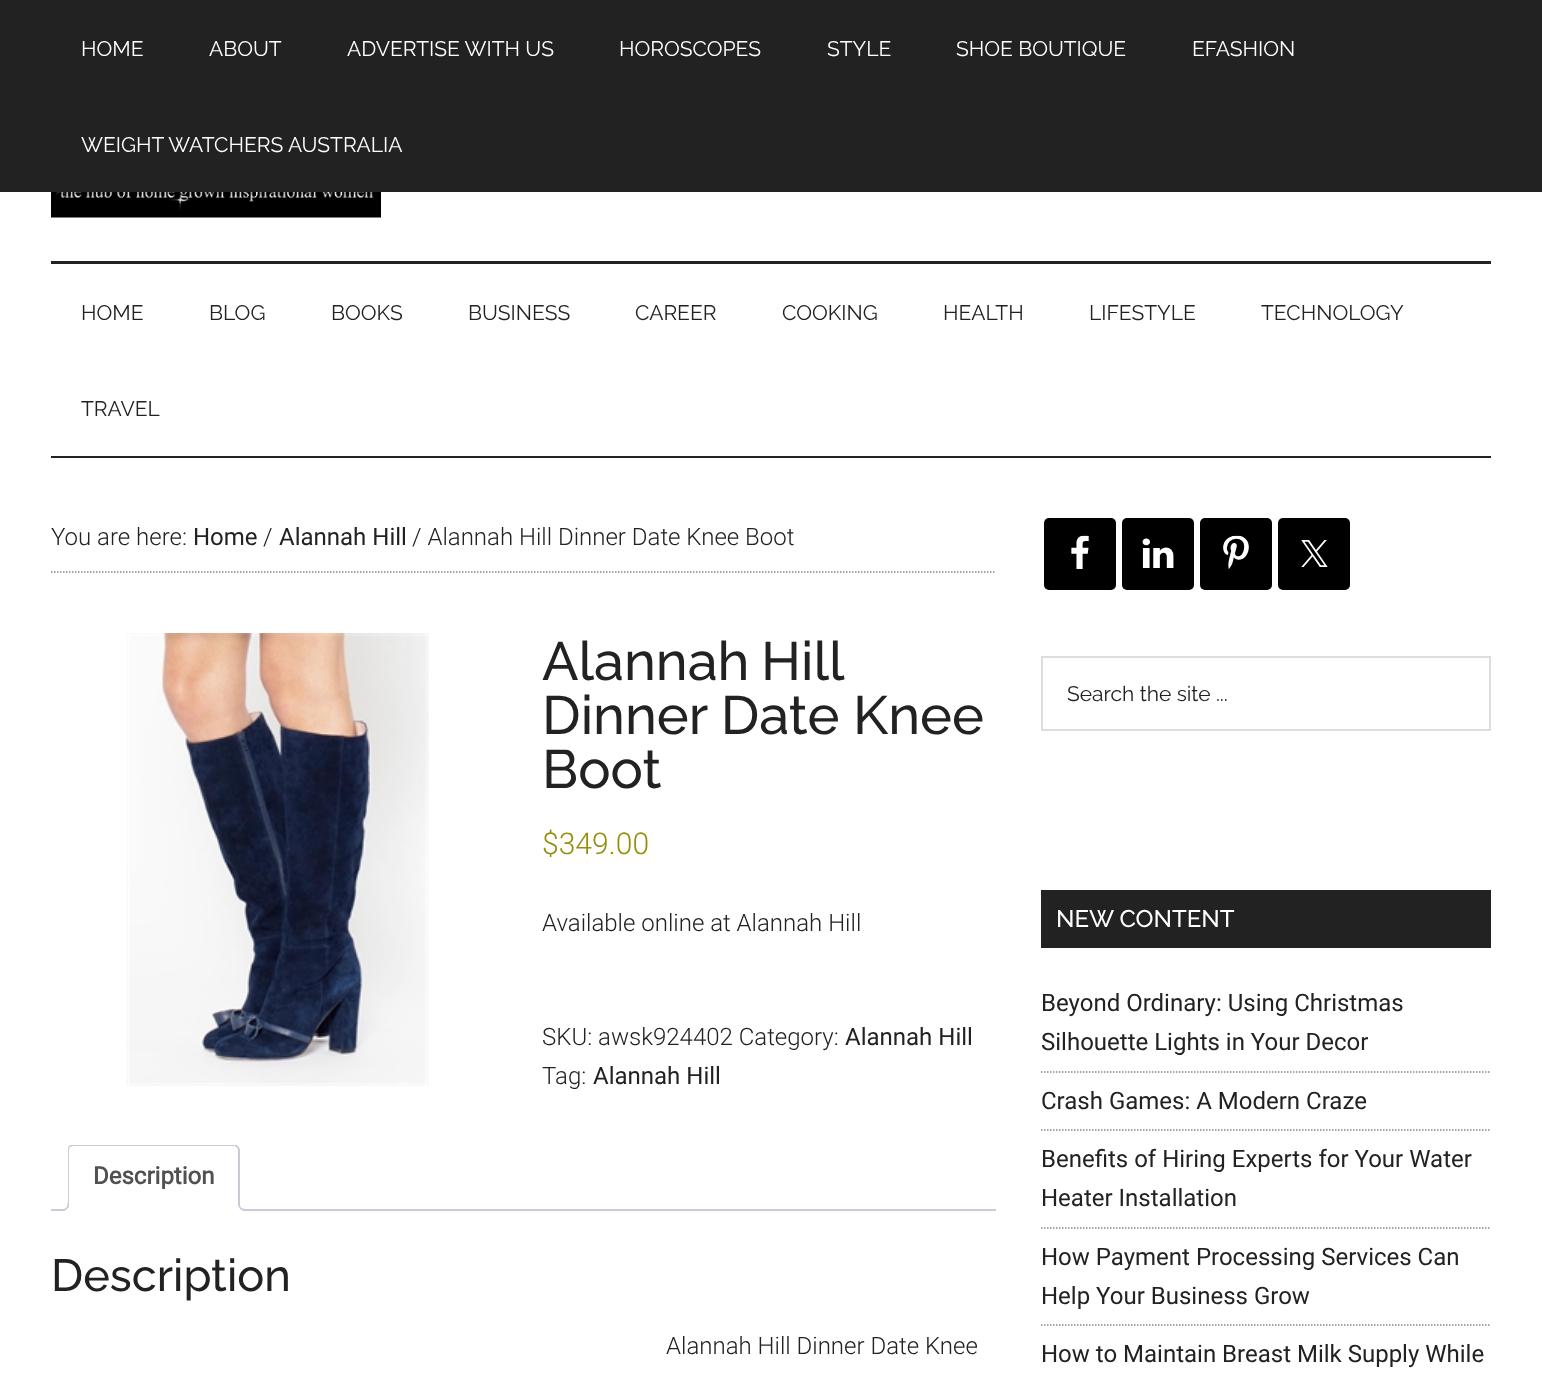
<!DOCTYPE html>
<meta charset="utf-8">
<style>body { margin: 0 } canvas { display: block }</style>
<canvas id="canvas" width="1542" height="1386"></canvas>
<script type="module">
  const canvas = document.getElementById("canvas");
  const ctx = canvas.getContext("2d");
  ctx.miterLimit = 4;
  ctx.fontKerning = "normal";
  async function loadImage(src) {
    const img = new Image();
    img.src = src;
    await img.decode();
    return img;
  }

  ctx.fillStyle = "#ffffff";
  ctx.fillRect(0, 0, 1542, 1386);
  ctx.fillStyle = "#222222";
  ctx.fillRect(0, 0, 1542, 192);
  ctx.font = "21px Raleway";
  ctx.fillStyle = "#ffffff";
  ctx.fillText("HOME", 81, 56);
  ctx.fillText("ABOUT", 209, 56);
  ctx.fillText("ADVERTISE WITH US", 347, 56);
  ctx.fillText("HOROSCOPES", 619, 56);
  ctx.fillText("STYLE", 827, 56);
  ctx.fillText("SHOE BOUTIQUE", 956, 56);
  ctx.fillText("EFASHION", 1192, 56);
  ctx.fillText("WEIGHT WATCHERS AUSTRALIA", 81, 152);
  ctx.fillStyle = "#222222";
  ctx.fillRect(51, 261, 1440, 3);
  ctx.drawImage(await loadImage("img1.png"), 51, 192, 330, 26);
  ctx.fillRect(51, 456, 1440, 2);
  ctx.fillText("HOME", 81, 320);
  ctx.fillText("BLOG", 209, 320);
  ctx.fillText("BOOKS", 331, 320);
  ctx.fillText("BUSINESS", 468, 320);
  ctx.fillText("CAREER", 635, 320);
  ctx.fillText("COOKING", 782, 320);
  ctx.fillText("HEALTH", 943, 320);
  ctx.fillText("LIFESTYLE", 1089, 320);
  ctx.fillText("TECHNOLOGY", 1261, 320);
  ctx.fillText("TRAVEL", 81, 416);
  ctx.beginPath();
  ctx.moveTo(51, 572);
  ctx.lineTo(996, 572);
  ctx.strokeStyle = "#888888";
  ctx.lineWidth = 1.5;
  ctx.setLineDash([1.5, 1.5]);
  ctx.stroke();
  ctx.font = "300 24px Roboto";
  ctx.fillText("You are here:", 51, 545);
  ctx.font = "24px Roboto";
  ctx.fillText("Home", 193, 545);
  ctx.font = "300 24px Roboto";
  ctx.fillText("/", 263, 545);
  ctx.font = "24px Roboto";
  ctx.fillText("Alannah Hill", 279, 545);
  ctx.font = "300 24px Roboto";
  ctx.fillText("/ Alannah Hill Dinner Date Knee Boot", 412, 545);
  ctx.drawImage(await loadImage("img2.png"), 126, 633, 303, 453);
  ctx.wordSpacing = "-2px";
  ctx.font = "500 54px Raleway";
  ctx.fillText("Alannah Hill", 542, 680);
  ctx.wordSpacing = "0px";
  ctx.fillText("Dinner Date Knee", 542, 734);
  ctx.fillText("Boot", 542, 788);
  ctx.font = "300 30px Roboto";
  ctx.fillStyle = "#958e09";
  ctx.fillText("$349.00", 542, 854);
  ctx.font = "300 24px Roboto";
  ctx.fillStyle = "#222222";
  ctx.fillText("Available online at Alannah Hill", 542, 931);
  ctx.fillText("SKU: awsk924402 Category:", 542, 1045);
  ctx.font = "24px Roboto";
  ctx.fillText("Alannah Hill", 845, 1045);
  ctx.font = "300 24px Roboto";
  ctx.fillText("Tag:", 542, 1084);
  ctx.font = "24px Roboto";
  ctx.fillText("Alannah Hill", 593, 1084);
  ctx.fillStyle = "#cfc8d8";
  ctx.fillRect(51, 1209, 945, 2);
  ctx.fillStyle = "#ffffff";
  ctx.beginPath();
  ctx.roundRect(68, 1145, 172, 66, [6, 6, 0, 0]);
  ctx.fill();
  ctx.save();
  ctx.beginPath();
  ctx.rect(51, 1145, 945, 66);
  ctx.clip();
  ctx.fillStyle = "#cfc8d8";
  ctx.beginPath();
  ctx.moveTo(74, 1146);
  ctx.bezierCurveTo(72, 1146, 71, 1147, 70, 1147);
  ctx.lineTo(69, 1146);
  ctx.bezierCurveTo(75, 1138, 89, 1144, 99, 1144);
  ctx.lineTo(236, 1144);
  ctx.lineTo(238, 1146);
  ctx.lineTo(237, 1148);
  ctx.bezierCurveTo(236, 1147, 235, 1146, 234, 1146);
  ctx.closePath();
  ctx.fill();
  ctx.restore();
  ctx.fillStyle = "#cfc8d8";
  ctx.beginPath();
  ctx.moveTo(240, 1210);
  ctx.lineTo(240, 1150);
  ctx.bezierCurveTo(240, 1149, 239, 1147, 238, 1146);
  ctx.lineTo(237, 1148);
  ctx.lineTo(238, 1150);
  ctx.lineTo(238, 1208);
  ctx.closePath();
  ctx.fill();
  ctx.fillStyle = "#ffffff";
  ctx.beginPath();
  ctx.moveTo(240, 1210);
  ctx.lineTo(68, 1210);
  ctx.lineTo(69, 1209);
  ctx.lineTo(238, 1209);
  ctx.lineTo(238, 1208);
  ctx.closePath();
  ctx.fill();
  ctx.fillStyle = "#cfc8d8";
  ctx.beginPath();
  ctx.moveTo(68, 1210);
  ctx.lineTo(69, 1209);
  ctx.lineTo(69, 1150);
  ctx.lineTo(70, 1147);
  ctx.lineTo(69, 1146);
  ctx.bezierCurveTo(68, 1147, 68, 1149, 68, 1150);
  ctx.closePath();
  ctx.fill();
  ctx.font = "bold 24px Roboto";
  ctx.fillStyle = "#515151";
  ctx.fillText("Description", 93, 1184);
  ctx.save();
  ctx.beginPath();
  ctx.rect(51, 1145, 945, 66);
  ctx.clip();
  ctx.fillStyle = "#ffffff";
  ctx.beginPath();
  ctx.moveTo(65, 1210);
  ctx.lineTo(65, 1214);
  ctx.bezierCurveTo(70.5, 1214, 72, 1211, 72, 1206);
  ctx.lineTo(69, 1206);
  ctx.bezierCurveTo(68.5, 1208, 67, 1209.5, 65, 1210);
  ctx.closePath();
  ctx.fill();
  ctx.restore();
  ctx.fillStyle = "#cfc8d8";
  ctx.beginPath();
  ctx.moveTo(61.5, 1203);
  ctx.lineTo(69, 1203);
  ctx.bezierCurveTo(69, 1208.5, 67, 1210.5, 61.5, 1210.5);
  ctx.closePath();
  ctx.moveTo(61.5, 1203);
  ctx.lineTo(67.5, 1203);
  ctx.bezierCurveTo(67.5, 1207.5, 66, 1209, 61.5, 1209);
  ctx.closePath();
  ctx.fill("evenodd");
  ctx.save();
  ctx.beginPath();
  ctx.rect(51, 1145, 945, 66);
  ctx.clip();
  ctx.fillStyle = "#ffffff";
  ctx.beginPath();
  ctx.moveTo(236, 1206);
  ctx.bezierCurveTo(236, 1211, 237.5, 1214, 243, 1214);
  ctx.lineTo(243, 1210.5);
  ctx.bezierCurveTo(241, 1210, 239, 1208, 238.5, 1206);
  ctx.closePath();
  ctx.fill();
  ctx.restore();
  ctx.beginPath();
  ctx.moveTo(238.5, 1203);
  ctx.lineTo(246, 1203);
  ctx.lineTo(246, 1210.5);
  ctx.bezierCurveTo(242, 1210.5, 238.5, 1209, 238.5, 1204.5);
  ctx.closePath();
  ctx.moveTo(240, 1203);
  ctx.lineTo(246, 1203);
  ctx.lineTo(246, 1209);
  ctx.bezierCurveTo(243, 1209, 240, 1208, 240, 1204.5);
  ctx.closePath();
  ctx.fill("evenodd");
  ctx.font = "500 45px Raleway";
  ctx.fillStyle = "#222222";
  ctx.fillText("Description", 51, 1291);
  ctx.font = "300 24px Roboto";
  ctx.fillText("Alannah Hill Dinner Date Knee", 666, 1354);
  ctx.fillStyle = "#000000";
  ctx.beginPath();
  ctx.roundRect(1044, 518, 72, 72, 5);
  ctx.fill();
  ctx.drawImage(await loadImage("img3.png"), 1071, 535, 18, 34);
  ctx.beginPath();
  ctx.roundRect(1122, 518, 72, 72, 5);
  ctx.fill();
  ctx.drawImage(await loadImage("img4.png"), 1142, 538, 32, 30);
  ctx.beginPath();
  ctx.roundRect(1200, 518, 72, 72, 5);
  ctx.fill();
  ctx.drawImage(await loadImage("img5.png"), 1223, 535, 26, 34);
  ctx.beginPath();
  ctx.roundRect(1278, 518, 72, 72, 5);
  ctx.fill();
  ctx.drawImage(await loadImage("img6.png"), 1301, 540, 27, 27);
  ctx.strokeStyle = "#dddddd";
  ctx.lineWidth = 2;
  ctx.setLineDash([]);
  ctx.strokeRect(1042, 657, 448, 73);
  ctx.font = "21px Raleway";
  ctx.fillStyle = "#222222";
  ctx.fillText("Search the site ...", 1067, 701);
  ctx.fillRect(1041, 890, 450, 58);
  ctx.font = "500 24px Raleway";
  ctx.fillStyle = "#ffffff";
  ctx.fillText("NEW CONTENT", 1056, 927);
  ctx.beginPath();
  ctx.moveTo(1041, 1072);
  ctx.lineTo(1491, 1072);
  ctx.strokeStyle = "#888888";
  ctx.lineWidth = 1.5;
  ctx.setLineDash([1.5, 1.5]);
  ctx.stroke();
  ctx.font = "24px Roboto";
  ctx.fillStyle = "#222222";
  ctx.fillText("Beyond Ordinary: Using Christmas", 1041, 1011);
  ctx.fillText("Silhouette Lights in Your Decor", 1041, 1050);
  ctx.beginPath();
  ctx.moveTo(1041, 1130);
  ctx.lineTo(1491, 1130);
  ctx.stroke();
  ctx.fillText("Crash Games: A Modern Craze", 1041, 1109);
  ctx.beginPath();
  ctx.moveTo(1041, 1228);
  ctx.lineTo(1491, 1228);
  ctx.stroke();
  ctx.fillText("Benefits of Hiring Experts for Your Water", 1041, 1167);
  ctx.fillText("Heater Installation", 1041, 1206);
  ctx.beginPath();
  ctx.moveTo(1041, 1325);
  ctx.lineTo(1491, 1325);
  ctx.stroke();
  ctx.fillText("How Payment Processing Services Can", 1041, 1265);
  ctx.fillText("Help Your Business Grow", 1041, 1304);
  ctx.fillText("How to Maintain Breast Milk Supply While", 1041, 1362);
</script>
